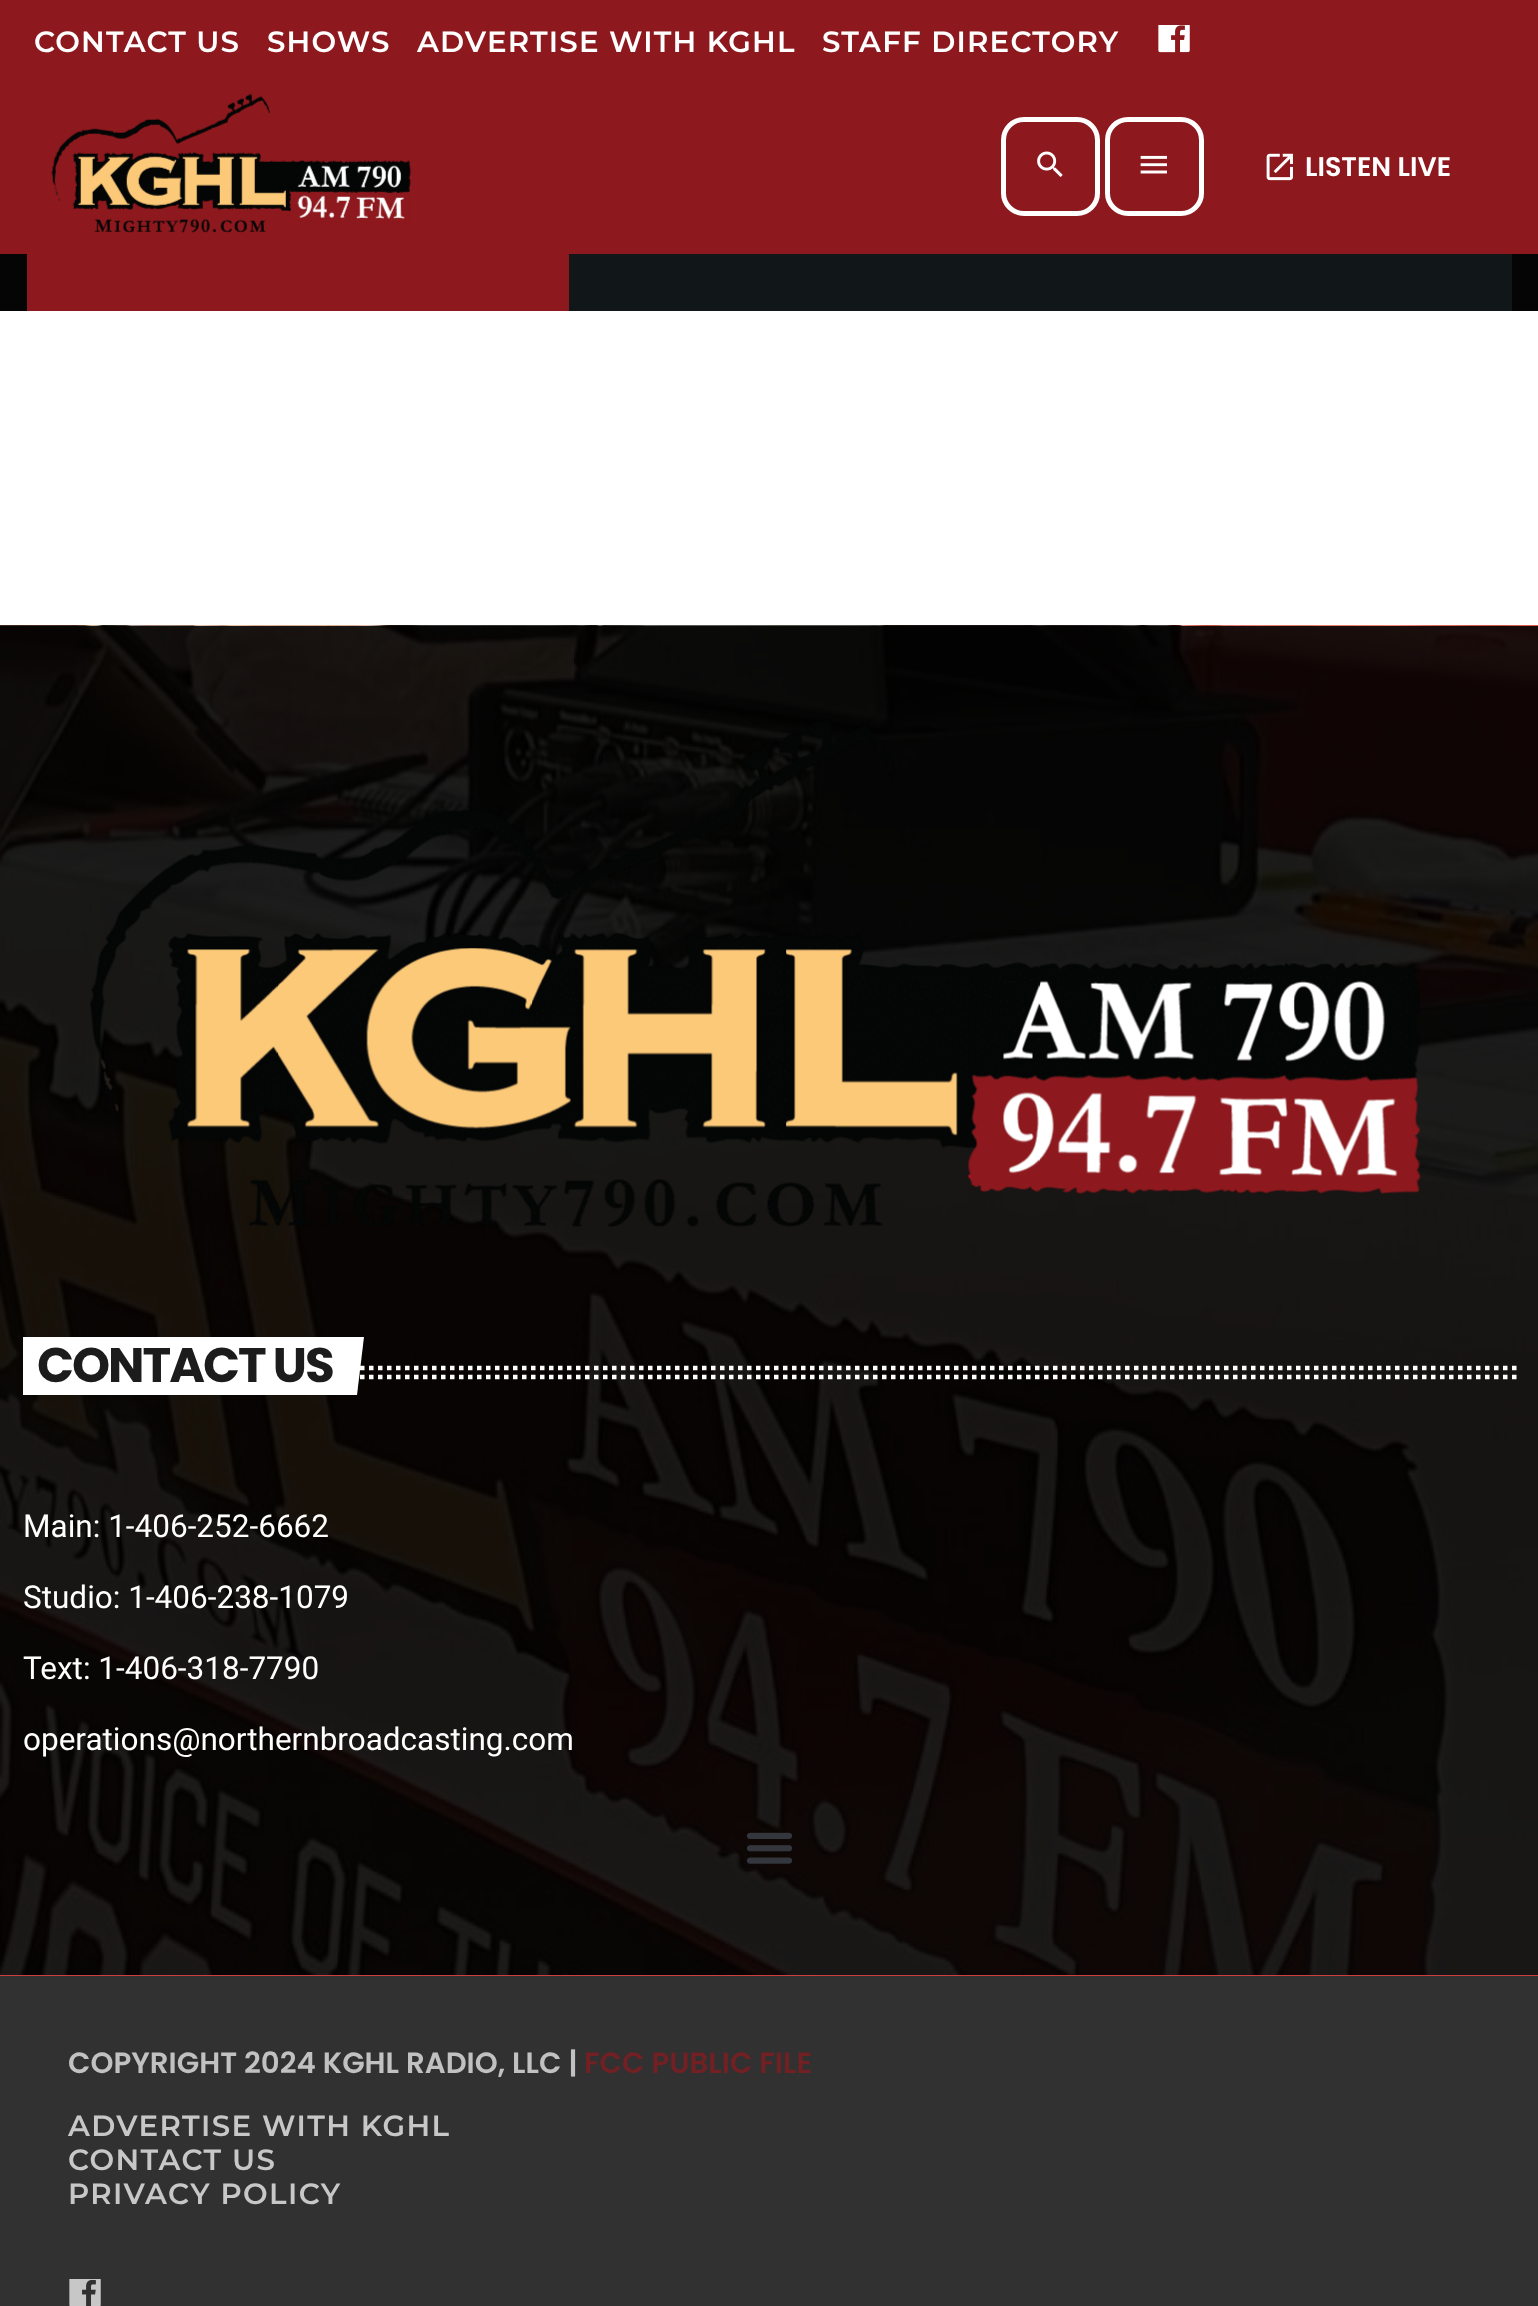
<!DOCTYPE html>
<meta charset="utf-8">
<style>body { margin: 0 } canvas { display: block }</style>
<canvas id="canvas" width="1538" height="2306"></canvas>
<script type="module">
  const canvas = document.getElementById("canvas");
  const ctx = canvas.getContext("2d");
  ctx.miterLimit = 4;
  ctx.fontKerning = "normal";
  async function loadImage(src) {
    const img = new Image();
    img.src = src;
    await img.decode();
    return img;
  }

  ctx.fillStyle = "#313131";
  ctx.fillRect(0, 0, 1538, 2306);
  ctx.fillStyle = "#8d191e";
  ctx.fillRect(0, 0, 1538, 254);
  ctx.letterSpacing = "1.2px";
  ctx.font = "100 29.25px Montserrat";
  ctx.fillStyle = "#ffffff";
  ctx.fillText("CONTACT US", 34, 52);
  ctx.fillText("SHOWS", 267, 52);
  ctx.fillText("ADVERTISE WITH KGHL", 417, 52);
  ctx.fillText("STAFF DIRECTORY", 822, 52);
  ctx.drawImage(await loadImage("img1.png"), 1158, 25, 32, 28);
  ctx.drawImage(await loadImage("img2.png"), 51, 93, 360, 140);
  ctx.beginPath();
  ctx.roundRect(1003.5, 119.5, 94, 94, 20.5);
  ctx.strokeStyle = "#ffffff";
  ctx.lineWidth = 5;
  ctx.stroke();
  ctx.drawImage(await loadImage("img3.png"), 1037, 151, 26, 26);
  ctx.beginPath();
  ctx.roundRect(1107.5, 119.5, 94, 94, 20.5);
  ctx.stroke();
  ctx.drawImage(await loadImage("img4.png"), 1140, 155, 27, 19);
  ctx.drawImage(await loadImage("img5.png"), 1266, 153, 27, 28);
  ctx.letterSpacing = "0px";
  ctx.font = "600 27px Poppins";
  ctx.fillText("LISTEN LIVE", 1305, 176);
  ctx.fillStyle = "#050505";
  ctx.fillRect(0, 254, 1538, 57);
  ctx.fillStyle = "#111618";
  ctx.fillRect(569, 254, 943, 57);
  ctx.fillStyle = "#8d191e";
  ctx.fillRect(27, 254, 542, 57);
  ctx.fillStyle = "#ffffff";
  ctx.fillRect(0, 311, 1538, 314);
  ctx.fillStyle = "#cd3e3e";
  ctx.fillRect(0, 1975, 1538, 1);
  ctx.drawImage(await loadImage("img6.png"), 0, 625, 1538, 1350);
  ctx.drawImage(await loadImage("img7.png"), 90, 722, 1331, 505);
  ctx.beginPath();
  ctx.moveTo(36, 1368);
  ctx.lineTo(1516.5, 1368);
  ctx.lineWidth = 4.5;
  ctx.setLineDash([4.5, 4.5]);
  ctx.stroke();
  ctx.beginPath();
  ctx.moveTo(36, 1377);
  ctx.lineTo(1516.5, 1377);
  ctx.stroke();
  ctx.save();
  ctx.beginPath();
  ctx.rect(23, 1337, 346, 58);
  ctx.clip();
  ctx.fillStyle = "#ffffff";
  ctx.beginPath();
  ctx.moveTo(8, 1337);
  ctx.lineTo(364, 1337);
  ctx.lineTo(357, 1395);
  ctx.lineTo(1, 1395);
  ctx.closePath();
  ctx.fill();
  ctx.restore();
  ctx.letterSpacing = "-2px";
  ctx.font = "bold 48.5px Poppins";
  ctx.fillStyle = "#1c1c1c";
  ctx.fillText("CONTACT US", 37, 1382);
  ctx.letterSpacing = "0px";
  ctx.font = "31.5px Roboto";
  ctx.fillStyle = "#ffffff";
  ctx.fillText("Main: 1-406-252-6662", 23, 1537);
  ctx.fillText("Studio: 1-406-238-1079", 23, 1608);
  ctx.fillText("Text: 1-406-318-7790", 23, 1679);
  ctx.fillText("operations@northernbroadcasting.com", 23, 1750);
  ctx.drawImage(await loadImage("img8.png"), 746, 1832, 47, 32);
  ctx.font = "600 29.25px Poppins";
  ctx.fillStyle = "#c1c1c1";
  ctx.fillText("COPYRIGHT 2024 KGHL RADIO, LLC |", 68, 2073);
  ctx.fillStyle = "#712024";
  ctx.fillText("FCC PUBLIC FILE", 584, 2073);
  ctx.letterSpacing = "1.4px";
  ctx.font = "100 29.25px Montserrat";
  ctx.fillStyle = "#c7c7c7";
  ctx.fillText("ADVERTISE WITH KGHL", 68, 2136);
  ctx.fillText("CONTACT US", 68, 2170);
  ctx.fillText("PRIVACY POLICY", 68, 2204);
  ctx.drawImage(await loadImage("img9.png"), 69, 2279, 32, 27);
</script>
